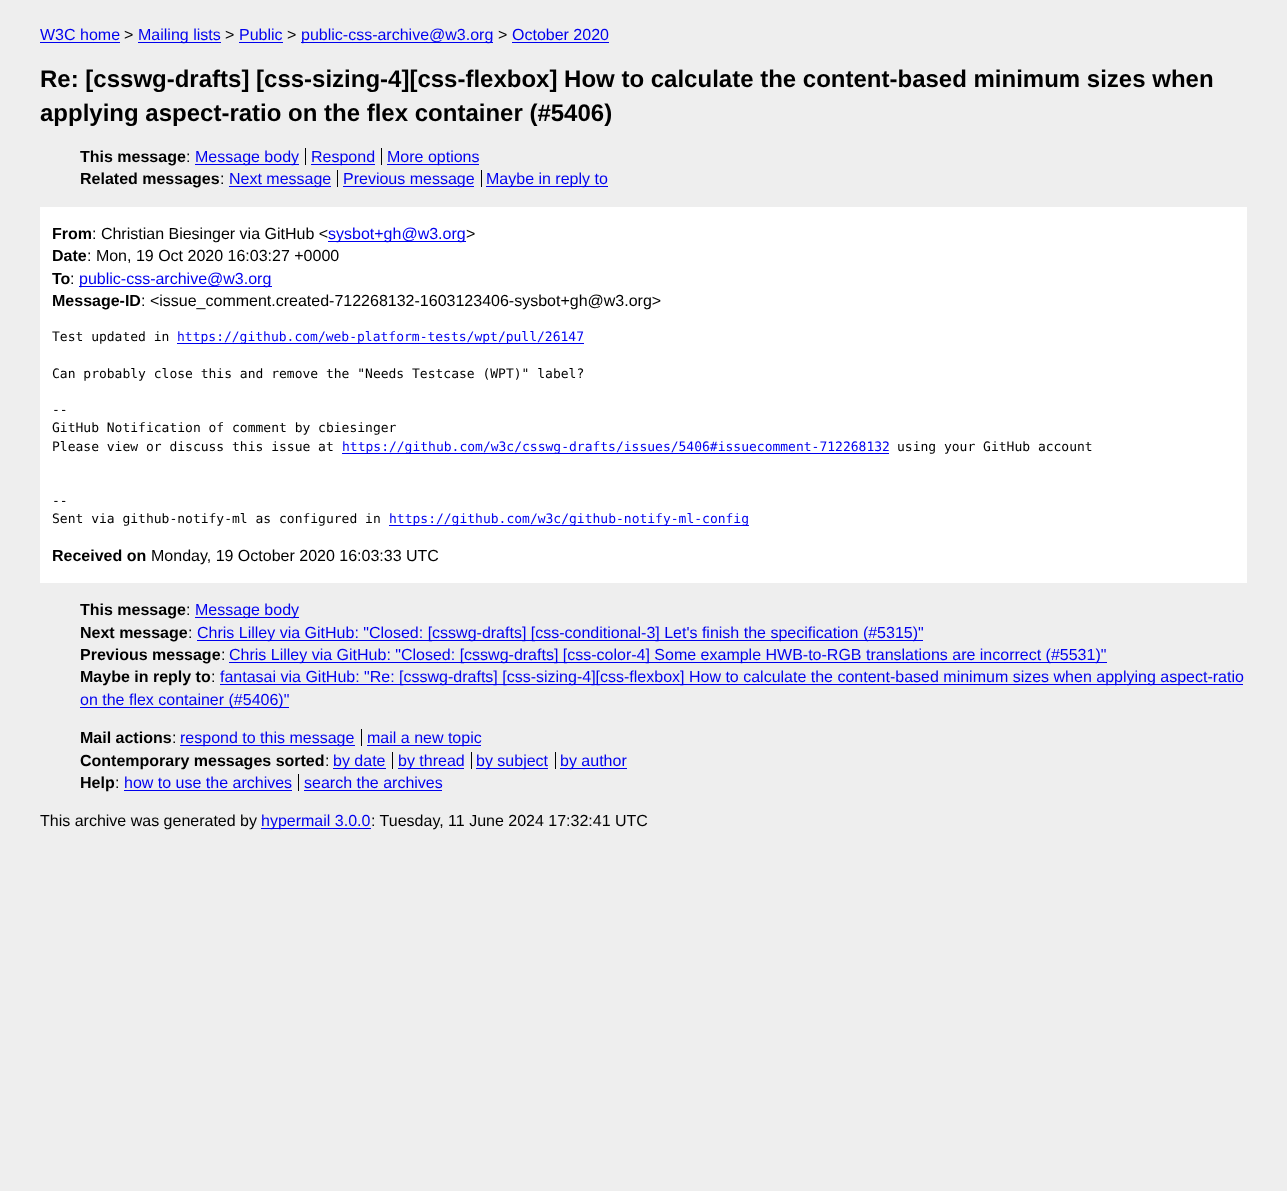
<!DOCTYPE html>
<meta charset="utf-8">
<style>body { margin: 0 } canvas { display: block }</style>
<canvas id="canvas" width="1287" height="1191"></canvas>
<script type="module">
  const canvas = document.getElementById("canvas");
  const ctx = canvas.getContext("2d");
  ctx.miterLimit = 4;
  ctx.fontKerning = "normal";

  ctx.fillStyle = "#eeeeee";
  ctx.fillRect(0, 0, 1287, 1191);
  ctx.font = "16px Liberation Sans";
  ctx.fillStyle = "#0000ee";
  ctx.fillText("W3C home", 40, 40);
  ctx.fillRect(40, 42, 80, 1);
  ctx.fillStyle = "#000000";
  ctx.fillText(">", 124, 40);
  ctx.fillStyle = "#0000ee";
  ctx.fillRect(138, 42, 83, 1);
  ctx.fillText("Mailing lists", 138, 40);
  ctx.fillStyle = "#000000";
  ctx.fillText(">", 225, 40);
  ctx.fillStyle = "#0000ee";
  ctx.fillText("Public", 239, 40);
  ctx.fillRect(239, 42, 44, 1);
  ctx.fillStyle = "#000000";
  ctx.fillText(">", 287, 40);
  ctx.fillStyle = "#0000ee";
  ctx.fillRect(301, 42, 192, 1);
  ctx.fillText("public-css-archive@w3.org", 301, 40);
  ctx.fillStyle = "#000000";
  ctx.fillText(">", 498, 40);
  ctx.fillStyle = "#0000ee";
  ctx.fillText("October 2020", 512, 40);
  ctx.fillRect(512, 42, 97, 1);
  ctx.font = "bold 24px Liberation Sans";
  ctx.fillStyle = "#000000";
  ctx.fillText("Re: [csswg-drafts] [css-sizing-4][css-flexbox] How to calculate the content-based minimum sizes when", 40, 87);
  ctx.fillText("applying aspect-ratio on the flex container (#5406)", 40, 121);
  ctx.font = "bold 16px Liberation Sans";
  ctx.fillText("This message", 80, 162);
  ctx.font = "16px Liberation Sans";
  ctx.fillText(":", 186, 162);
  ctx.fillStyle = "#0000ee";
  ctx.fillRect(195, 164, 104, 1);
  ctx.fillText("Message body", 195, 162);
  ctx.fillRect(311, 164, 64, 1);
  ctx.fillText("Respond", 311, 162);
  ctx.fillStyle = "#000000";
  ctx.fillRect(305, 148, 1, 17);
  ctx.fillStyle = "#0000ee";
  ctx.fillRect(387, 164, 92, 1);
  ctx.fillText("More options", 387, 162);
  ctx.fillStyle = "#000000";
  ctx.fillRect(381, 148, 1, 17);
  ctx.font = "bold 16px Liberation Sans";
  ctx.fillText("Related messages", 80, 184);
  ctx.font = "16px Liberation Sans";
  ctx.fillText(":", 220, 184);
  ctx.fillStyle = "#0000ee";
  ctx.fillRect(229, 186, 102, 1);
  ctx.fillText("Next message", 229, 184);
  ctx.fillRect(343, 186, 131, 1);
  ctx.fillText("Previous message", 343, 184);
  ctx.fillStyle = "#000000";
  ctx.fillRect(337, 170, 1, 17);
  ctx.fillStyle = "#0000ee";
  ctx.fillRect(486, 186, 122, 1);
  ctx.fillText("Maybe in reply to", 486, 184);
  ctx.fillStyle = "#000000";
  ctx.fillRect(481, 170, 1, 17);
  ctx.fillStyle = "#ffffff";
  ctx.fillRect(40, 207, 1207, 376);
  ctx.font = "bold 16px Liberation Sans";
  ctx.fillStyle = "#000000";
  ctx.fillText("From", 52, 239);
  ctx.font = "16px Liberation Sans";
  ctx.fillText(": Christian Biesinger via GitHub <", 92, 239);
  ctx.fillStyle = "#0000ee";
  ctx.fillRect(328, 241, 138, 1);
  ctx.fillText("sysbot+gh@w3.org", 328, 239);
  ctx.fillStyle = "#000000";
  ctx.fillText(">", 466, 239);
  ctx.font = "bold 16px Liberation Sans";
  ctx.fillText("Date", 52, 261);
  ctx.font = "16px Liberation Sans";
  ctx.fillText(": Mon, 19 Oct 2020 16:03:27 +0000", 87, 261);
  ctx.font = "bold 16px Liberation Sans";
  ctx.fillText("To", 52, 284);
  ctx.font = "16px Liberation Sans";
  ctx.fillText(":", 70, 284);
  ctx.fillStyle = "#0000ee";
  ctx.fillRect(79, 286, 193, 1);
  ctx.fillText("public-css-archive@w3.org", 79, 284);
  ctx.font = "bold 16px Liberation Sans";
  ctx.fillStyle = "#000000";
  ctx.fillText("Message-ID", 52, 306);
  ctx.font = "16px Liberation Sans";
  ctx.fillText(": <issue_comment.created-712268132-1603123406-sysbot+gh@w3.org>", 141, 306);
  ctx.font = "13px DejaVu Sans Mono";
  ctx.fillText("Test updated in", 52, 341);
  ctx.fillStyle = "#0000ee";
  ctx.fillRect(177, 343, 407, 1);
  ctx.fillText("https://github.com/web-platform-tests/wpt/pull/26147", 177, 341);
  ctx.fillStyle = "#000000";
  ctx.fillText("Can probably close this and remove the \"Needs Testcase (WPT)\" label?", 52, 378);
  ctx.fillText("--", 52, 414);
  ctx.fillText("GitHub Notification of comment by cbiesinger", 52, 432);
  ctx.fillText("Please view or discuss this issue at", 52, 451);
  ctx.fillStyle = "#0000ee";
  ctx.fillRect(342, 453, 547, 1);
  ctx.fillText("https://github.com/w3c/csswg-drafts/issues/5406#issuecomment-712268132", 342, 451);
  ctx.fillStyle = "#000000";
  ctx.fillText("using your GitHub account", 897, 451);
  ctx.fillText("--", 52, 505);
  ctx.fillText("Sent via github-notify-ml as configured in", 52, 523);
  ctx.fillStyle = "#0000ee";
  ctx.fillRect(389, 525, 360, 1);
  ctx.fillText("https://github.com/w3c/github-notify-ml-config", 389, 523);
  ctx.font = "bold 16px Liberation Sans";
  ctx.fillStyle = "#000000";
  ctx.fillText("Received on", 52, 561);
  ctx.font = "16px Liberation Sans";
  ctx.fillText("Monday, 19 October 2020 16:03:33 UTC", 151, 561);
  ctx.font = "bold 16px Liberation Sans";
  ctx.fillText("This message", 80, 615);
  ctx.font = "16px Liberation Sans";
  ctx.fillText(":", 186, 615);
  ctx.fillStyle = "#0000ee";
  ctx.fillRect(195, 617, 104, 1);
  ctx.fillText("Message body", 195, 615);
  ctx.font = "bold 16px Liberation Sans";
  ctx.fillStyle = "#000000";
  ctx.fillText("Next message", 80, 638);
  ctx.font = "16px Liberation Sans";
  ctx.fillText(":", 188, 638);
  ctx.fillStyle = "#0000ee";
  ctx.fillRect(197, 640, 726, 1);
  ctx.fillText("Chris Lilley via GitHub: \"Closed: [csswg-drafts] [css-conditional-3] Let's finish the specification (#5315)\"", 197, 638);
  ctx.font = "bold 16px Liberation Sans";
  ctx.fillStyle = "#000000";
  ctx.fillText("Previous message", 80, 660);
  ctx.font = "16px Liberation Sans";
  ctx.fillText(":", 221, 660);
  ctx.fillStyle = "#0000ee";
  ctx.fillRect(229, 662, 878, 1);
  ctx.fillText("Chris Lilley via GitHub: \"Closed: [csswg-drafts] [css-color-4] Some example HWB-to-RGB translations are incorrect (#5531)\"", 229, 660);
  ctx.font = "bold 16px Liberation Sans";
  ctx.fillStyle = "#000000";
  ctx.fillText("Maybe in reply to", 80, 682);
  ctx.font = "16px Liberation Sans";
  ctx.fillText(":", 211, 682);
  ctx.fillStyle = "#0000ee";
  ctx.fillRect(220, 684, 1023, 1);
  ctx.fillText("fantasai via GitHub: \"Re: [csswg-drafts] [css-sizing-4][css-flexbox] How to calculate the content-based minimum sizes when applying aspect-ratio", 220, 682);
  ctx.fillRect(80, 707, 209, 1);
  ctx.fillText("on the flex container (#5406)\"", 80, 705);
  ctx.font = "bold 16px Liberation Sans";
  ctx.fillStyle = "#000000";
  ctx.fillText("Mail actions", 80, 743);
  ctx.font = "16px Liberation Sans";
  ctx.fillText(":", 172, 743);
  ctx.fillStyle = "#0000ee";
  ctx.fillRect(180, 745, 175, 1);
  ctx.fillText("respond to this message", 180, 743);
  ctx.fillRect(367, 745, 114, 1);
  ctx.fillText("mail a new topic", 367, 743);
  ctx.fillStyle = "#000000";
  ctx.fillRect(361, 729, 1, 17);
  ctx.font = "bold 16px Liberation Sans";
  ctx.fillText("Contemporary messages sorted", 80, 766);
  ctx.font = "16px Liberation Sans";
  ctx.fillText(":", 325, 766);
  ctx.fillStyle = "#0000ee";
  ctx.fillRect(333, 768, 53, 1);
  ctx.fillText("by date", 333, 766);
  ctx.fillRect(398, 768, 66, 1);
  ctx.fillText("by thread", 398, 766);
  ctx.fillStyle = "#000000";
  ctx.fillRect(392, 752, 1, 17);
  ctx.fillStyle = "#0000ee";
  ctx.fillRect(476, 768, 72, 1);
  ctx.fillText("by subject", 476, 766);
  ctx.fillStyle = "#000000";
  ctx.fillRect(471, 752, 1, 17);
  ctx.fillStyle = "#0000ee";
  ctx.fillRect(560, 768, 67, 1);
  ctx.fillText("by author", 560, 766);
  ctx.fillStyle = "#000000";
  ctx.fillRect(555, 752, 1, 17);
  ctx.font = "bold 16px Liberation Sans";
  ctx.fillText("Help", 80, 788);
  ctx.font = "16px Liberation Sans";
  ctx.fillText(":", 115, 788);
  ctx.fillStyle = "#0000ee";
  ctx.fillText("how to use the archives", 124, 788);
  ctx.fillRect(124, 790, 168, 1);
  ctx.fillText("search the archives", 304, 788);
  ctx.fillStyle = "#000000";
  ctx.fillRect(298, 774, 1, 17);
  ctx.fillStyle = "#0000ee";
  ctx.fillRect(304, 790, 138, 1);
  ctx.fillStyle = "#000000";
  ctx.fillText("This archive was generated by", 40, 826);
  ctx.fillStyle = "#0000ee";
  ctx.fillRect(261, 828, 110, 1);
  ctx.fillText("hypermail 3.0.0", 261, 826);
  ctx.fillStyle = "#000000";
  ctx.fillText(": Tuesday, 11 June 2024 17:32:41 UTC", 371, 826);
</script>
